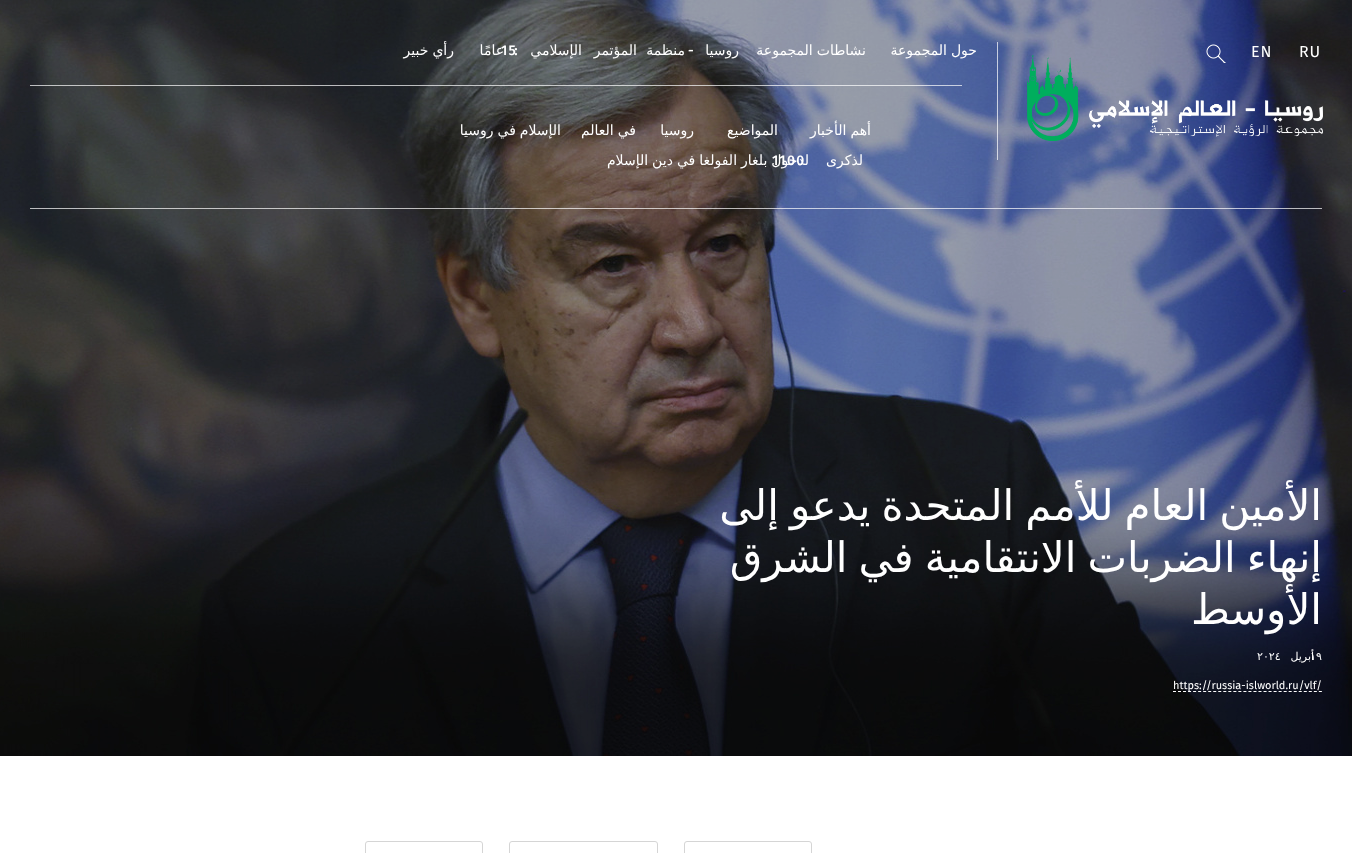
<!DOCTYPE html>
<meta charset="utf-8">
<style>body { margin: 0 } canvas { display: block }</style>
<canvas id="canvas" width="1352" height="853"></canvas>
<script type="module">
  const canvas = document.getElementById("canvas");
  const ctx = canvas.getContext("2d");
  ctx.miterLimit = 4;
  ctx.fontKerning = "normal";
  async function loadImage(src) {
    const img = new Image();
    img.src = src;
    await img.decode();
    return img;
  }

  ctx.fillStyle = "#ffffff";
  ctx.fillRect(0, 0, 1352, 853);
  ctx.drawImage(await loadImage("img3.png"), 0, 0, 1352, 756);
  ctx.drawImage(await loadImage("img2.png"), 1027, 55, 296, 86);
  ctx.letterSpacing = "1px";
  ctx.font = "16px Fira Sans";
  ctx.fillText("RU", 1299, 57);
  ctx.fillText("EN", 1251, 57);
  ctx.drawImage(await loadImage("img1.png"), 1206, 44, 20, 19);
  ctx.fillStyle = "rgba(255, 255, 255, 0.7)";
  ctx.fillRect(30, 208, 1292, 1);
  ctx.fillRect(997, 42, 1, 118);
  ctx.fillRect(30, 85, 932, 1);
  ctx.letterSpacing = "1.3px";
  ctx.wordSpacing = "-1.75px";
  ctx.direction = "rtl";
  ctx.font = "14px DejaVu Sans";
  ctx.fillStyle = "#ffffff";
  ctx.fillText("حول المجموعة", 977, 55);
  ctx.fillText("نشاطات المجموعة", 866, 55);
  ctx.wordSpacing = "0px";
  ctx.fillText("روسيا", 739, 55);
  ctx.font = "500 14px Fira Sans";
  ctx.fillText("-", 695, 55);
  ctx.font = "14px DejaVu Sans";
  ctx.fillText("منظمة", 685, 55);
  ctx.fillText("المؤتمر", 637, 55);
  ctx.fillText("الإسلامي", 582, 55);
  ctx.fillText("عامًا", 504, 55);
  ctx.direction = "ltr";
  ctx.font = "500 14px Fira Sans";
  ctx.fillText("15", 501, 55);
  ctx.direction = "rtl";
  ctx.fillText(":", 519, 55);
  ctx.wordSpacing = "-1.75px";
  ctx.font = "14px DejaVu Sans";
  ctx.fillText("رأي خبير", 454, 55);
  ctx.fillText("أهم الأخبار", 871, 135);
  ctx.wordSpacing = "0px";
  ctx.fillText("المواضيع", 778, 135);
  ctx.fillText("روسيا", 694, 135);
  ctx.wordSpacing = "-1.75px";
  ctx.fillText("في العالم", 636, 135);
  ctx.fillText("الإسلام في روسيا", 561, 135);
  ctx.wordSpacing = "0px";
  ctx.fillText("لذكرى", 863, 165);
  ctx.wordSpacing = "-1.75px";
  ctx.fillText("لدخول بلغار الفولغا في دين الإسلام", 809, 165);
  ctx.wordSpacing = "0px";
  ctx.direction = "ltr";
  ctx.font = "500 14px Fira Sans";
  ctx.fillText("1100", 772, 165);
  ctx.letterSpacing = "0px";
  ctx.wordSpacing = "-2.25px";
  ctx.direction = "rtl";
  ctx.font = "42px DejaVu Sans";
  ctx.fillText("الأمين العام للأمم المتحدة يدعو إلى", 1322, 520);
  ctx.fillText("إنهاء الضربات الانتقامية في الشرق", 1322, 572);
  ctx.wordSpacing = "0px";
  ctx.fillText("الأوسط", 1322, 624);
  ctx.letterSpacing = "2px";
  ctx.direction = "ltr";
  ctx.font = "11px DejaVu Sans";
  ctx.fillText("٢٠٢٤", 1257, 660);
  ctx.direction = "rtl";
  ctx.fillText("أبريل", 1314, 660);
  ctx.direction = "ltr";
  ctx.fillText("١٩", 1310, 660);
  ctx.beginPath();
  ctx.moveTo(1173, 691.5);
  ctx.lineTo(1322, 691.5);
  ctx.strokeStyle = "#ffffff";
  ctx.setLineDash([3, 2.03]);
  ctx.stroke();
  ctx.letterSpacing = "0px";
  ctx.font = "11px Fira Sans";
  ctx.fillText("https://russia-islworld.ru/vlf/", 1173, 689);
  ctx.beginPath();
  ctx.roundRect(684.5, 841.5, 127, 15, 2.5);
  ctx.strokeStyle = "#d5d5d5";
  ctx.setLineDash([]);
  ctx.stroke();
  ctx.beginPath();
  ctx.roundRect(509.5, 841.5, 148, 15, 2.5);
  ctx.stroke();
  ctx.beginPath();
  ctx.roundRect(365.5, 841.5, 117, 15, 2.5);
  ctx.stroke();
</script>
